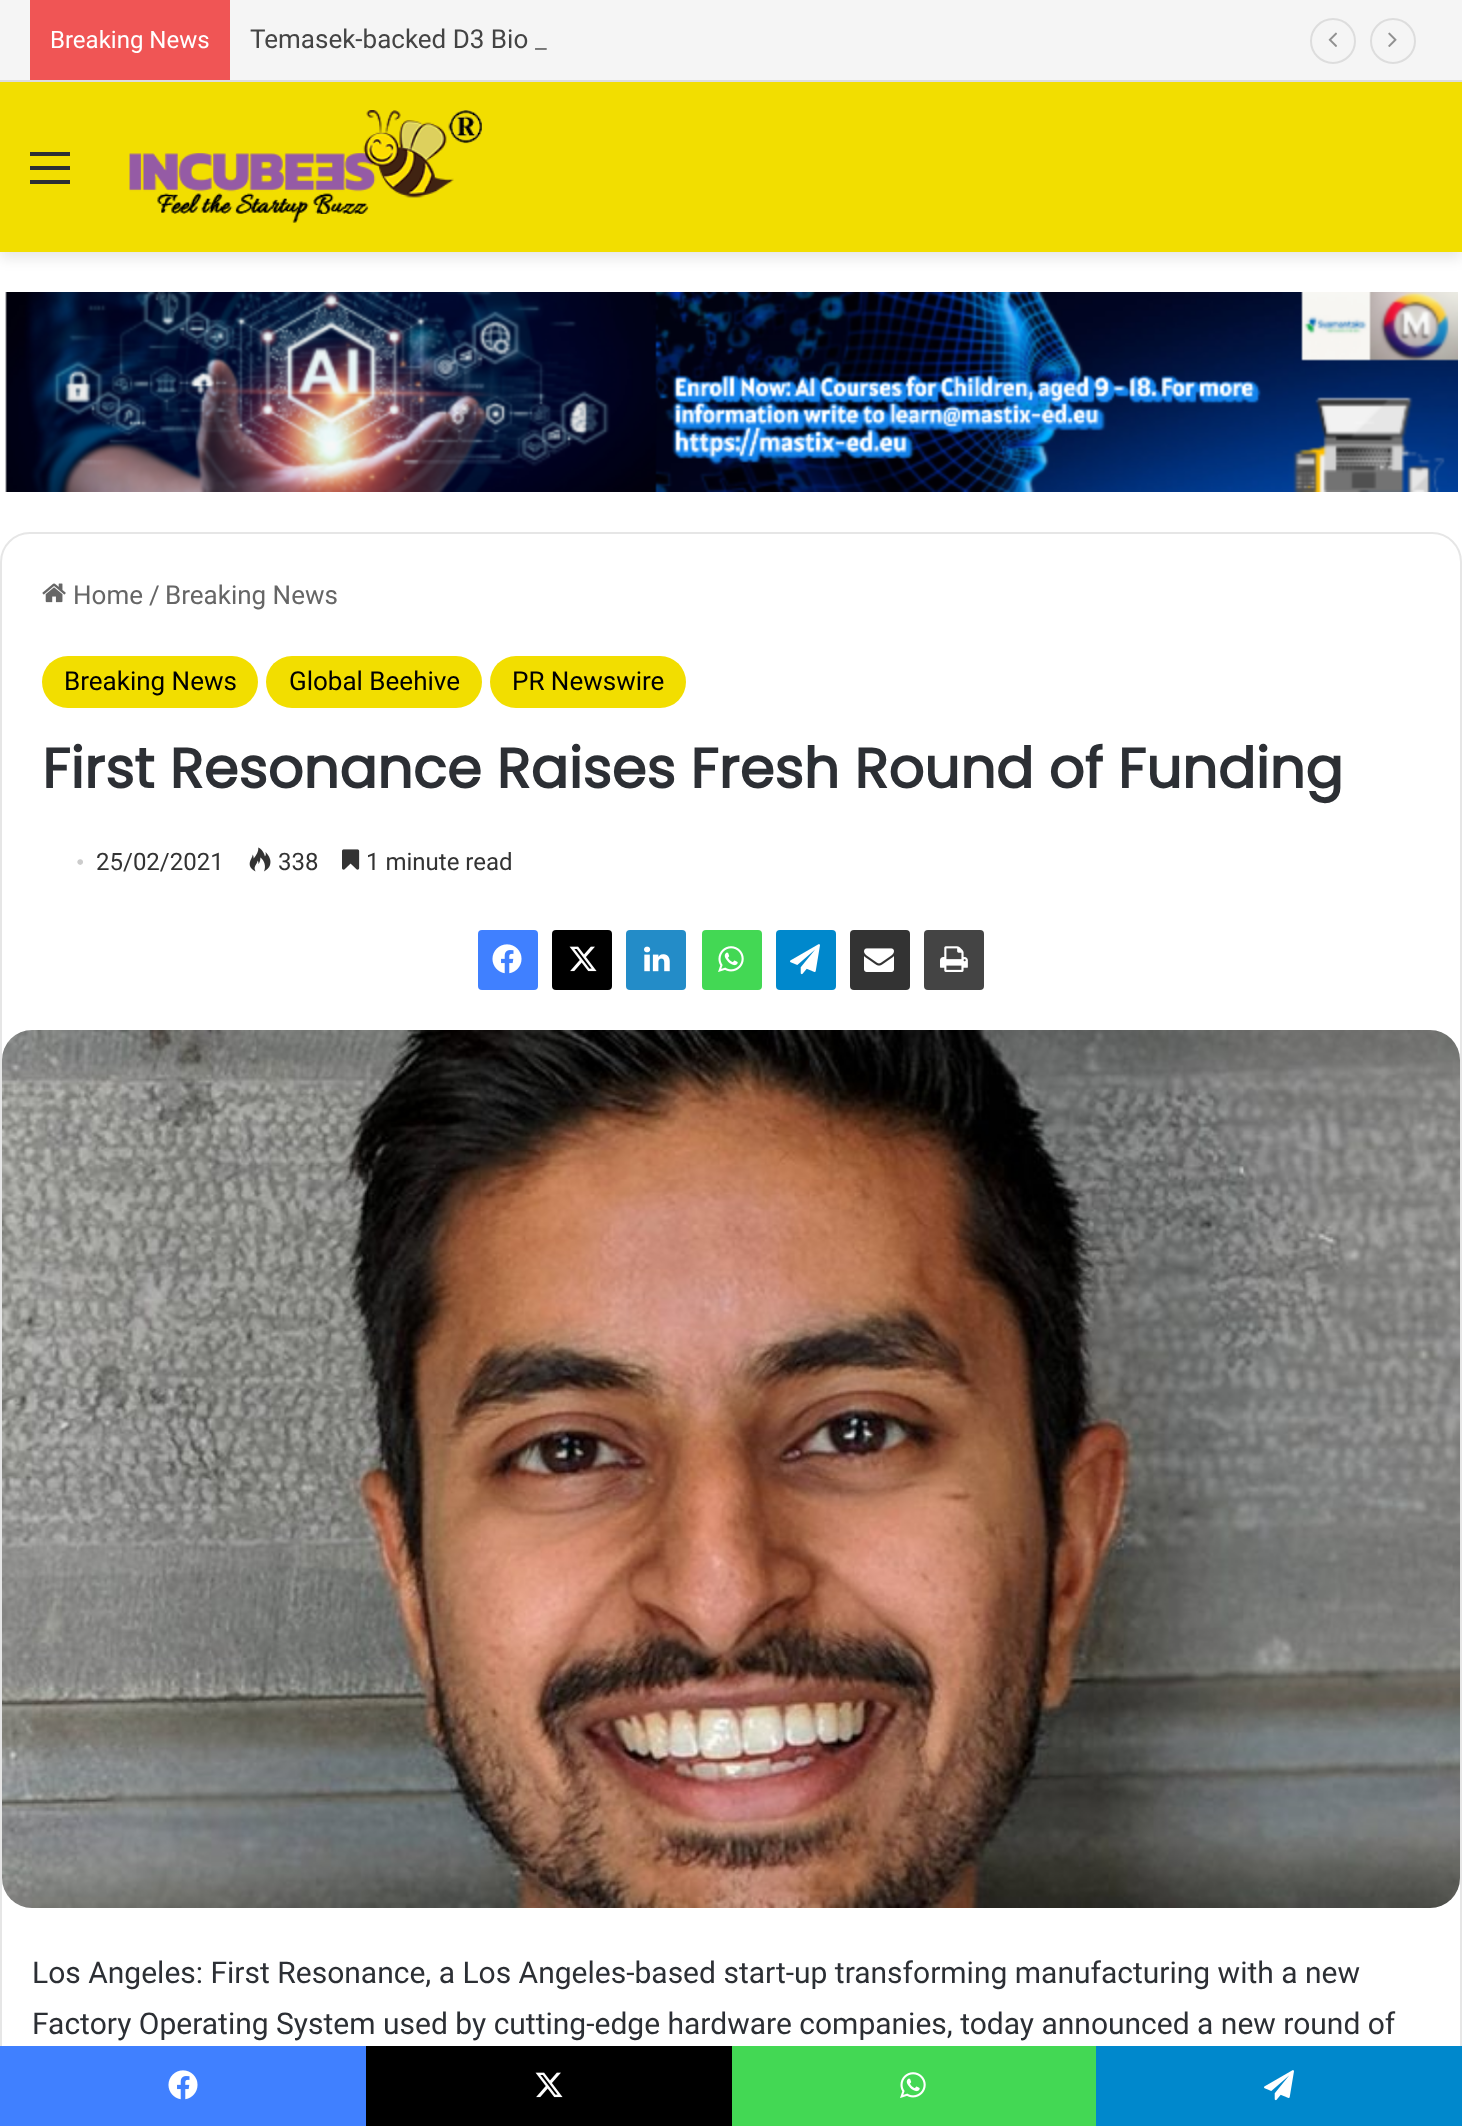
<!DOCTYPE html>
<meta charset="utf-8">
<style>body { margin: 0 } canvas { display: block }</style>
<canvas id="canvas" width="1462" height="2126"></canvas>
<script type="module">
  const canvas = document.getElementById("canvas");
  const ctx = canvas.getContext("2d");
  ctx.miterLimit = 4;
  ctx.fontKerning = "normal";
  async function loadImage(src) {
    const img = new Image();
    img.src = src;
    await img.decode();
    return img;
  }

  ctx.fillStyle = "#ffffff";
  ctx.fillRect(0, 0, 1462, 2126);
  ctx.fillStyle = "rgba(0, 0, 0, 0.1)";
  ctx.filter = "blur(7px)";
  ctx.beginPath();
  ctx.rect(0, 88, 1462, 170);
  ctx.fill();
  ctx.filter = "none";
  ctx.fillStyle = "#f5f5f5";
  ctx.fillRect(0, 0, 1462, 80);
  ctx.fillStyle = "#dddddd";
  ctx.fillRect(0, 80, 1462, 2);
  ctx.fillStyle = "#f05555";
  ctx.fillRect(30, 0, 200, 80);
  ctx.font = "24px Roboto";
  ctx.fillStyle = "#ffffff";
  ctx.fillText("Breaking News", 50, 48);
  ctx.font = "26px Roboto";
  ctx.fillStyle = "#444444";
  ctx.fillText("Temasek-backed D3 Bio", 250, 48);
  ctx.fillStyle = "#777777";
  ctx.fillText("_", 535, 48);
  ctx.beginPath();
  ctx.arc(1333, 41, 22, 0, Math.PI * 2);
  ctx.strokeStyle = "#dddddd";
  ctx.lineWidth = 2;
  ctx.stroke();
  ctx.drawImage(await loadImage("img1.png"), 1328, 32, 9, 15);
  ctx.beginPath();
  ctx.arc(1393, 41, 22, 0, Math.PI * 2);
  ctx.stroke();
  ctx.drawImage(await loadImage("img2.png"), 1388, 32, 9, 15);
  ctx.fillStyle = "#f2de00";
  ctx.fillRect(0, 82, 1462, 170);
  ctx.fillStyle = "#2c2f34";
  ctx.fillRect(30, 166, 40, 4);
  ctx.fillRect(30, 152, 40, 4);
  ctx.fillRect(30, 180, 40, 4);
  ctx.drawImage(await loadImage("img3.png"), 129, 110, 353, 113);
  ctx.drawImage(await loadImage("img4.png"), 5, 292, 1453, 200);
  ctx.beginPath();
  ctx.roundRect(1, 533, 1460, 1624, 29);
  ctx.strokeStyle = "#e6e6e6";
  ctx.stroke();
  ctx.drawImage(await loadImage("img5.png"), 42, 583, 24, 20);
  ctx.fillStyle = "#666666";
  ctx.fillText("Home", 73, 604);
  ctx.fillText("/", 149, 604);
  ctx.fillText("Breaking News", 165, 604);
  ctx.fillStyle = "#f2de00";
  ctx.beginPath();
  ctx.roundRect(42, 656, 216, 52, 26);
  ctx.fill();
  ctx.fillStyle = "#000000";
  ctx.fillText("Breaking News", 64, 690);
  ctx.fillStyle = "#f2de00";
  ctx.beginPath();
  ctx.roundRect(266, 656, 216, 52, 26);
  ctx.fill();
  ctx.fillStyle = "#000000";
  ctx.fillText("Global Beehive", 289, 690);
  ctx.fillStyle = "#f2de00";
  ctx.beginPath();
  ctx.roundRect(490, 656, 196, 52, 26);
  ctx.fill();
  ctx.fillStyle = "#000000";
  ctx.fillText("PR Newswire", 512, 690);
  ctx.font = "bold 56px Poppins";
  ctx.fillStyle = "#2c2f34";
  ctx.fillText("First Resonance Raises Fresh Round of Funding", 42, 788);
  ctx.font = "24px Liberation Serif";
  ctx.fillStyle = "#cccccc";
  ctx.fillText("•", 76, 870);
  ctx.font = "24px Roboto";
  ctx.fillStyle = "#333333";
  ctx.fillText("25/02/2021", 96, 870);
  ctx.drawImage(await loadImage("img6.png"), 249, 847, 22, 25);
  ctx.fillText("338", 278, 870);
  ctx.drawImage(await loadImage("img7.png"), 342, 849, 18, 21);
  ctx.fillText("1 minute read", 366, 870);
  ctx.fillStyle = "#4080ff";
  ctx.beginPath();
  ctx.roundRect(478, 930, 60, 60, 4);
  ctx.fill();
  ctx.drawImage(await loadImage("img8.png"), 492, 944, 30, 30);
  ctx.fillStyle = "#000000";
  ctx.beginPath();
  ctx.roundRect(552, 930, 60, 60, 4);
  ctx.fill();
  ctx.drawImage(await loadImage("img9.png"), 569, 946, 28, 26);
  ctx.fillStyle = "#238cc8";
  ctx.beginPath();
  ctx.roundRect(626, 930, 60, 60, 4);
  ctx.fill();
  ctx.drawImage(await loadImage("img10.png"), 644, 946, 26, 26);
  ctx.fillStyle = "#43d854";
  ctx.beginPath();
  ctx.roundRect(702, 930, 60, 60, 4);
  ctx.fill();
  ctx.drawImage(await loadImage("img11.png"), 718, 946, 26, 26);
  ctx.fillStyle = "#0088cc";
  ctx.beginPath();
  ctx.roundRect(776, 930, 60, 60, 4);
  ctx.fill();
  ctx.drawImage(await loadImage("img12.png"), 790, 944, 30, 31);
  ctx.fillStyle = "#333333";
  ctx.beginPath();
  ctx.roundRect(850, 930, 60, 60, 4);
  ctx.fill();
  ctx.drawImage(await loadImage("img13.png"), 864, 948, 30, 24);
  ctx.fillStyle = "#444444";
  ctx.beginPath();
  ctx.roundRect(924, 930, 60, 60, 4);
  ctx.fill();
  ctx.drawImage(await loadImage("img14.png"), 940, 946, 28, 26);
  ctx.drawImage(await loadImage("img15.png"), 2, 1030, 1458, 878);
  ctx.font = "30px Roboto";
  ctx.fillStyle = "#2c2f34";
  ctx.fillText("Los Angeles: First Resonance, a Los Angeles-based start-up transforming manufacturing with a new", 32, 1983);
  ctx.fillText("Factory Operating System used by cutting-edge hardware companies, today announced a new round of", 32, 2034);
  ctx.fillStyle = "#4080ff";
  ctx.fillRect(0, 2046, 366, 80);
  ctx.drawImage(await loadImage("img8.png"), 168, 2070, 30, 30);
  ctx.fillStyle = "#000000";
  ctx.fillRect(366, 2046, 366, 80);
  ctx.drawImage(await loadImage("img9.png"), 535, 2072, 28, 26);
  ctx.fillStyle = "#43d854";
  ctx.fillRect(732, 2046, 364, 80);
  ctx.drawImage(await loadImage("img11.png"), 900, 2072, 26, 26);
  ctx.fillStyle = "#0088cc";
  ctx.fillRect(1096, 2046, 366, 80);
  ctx.drawImage(await loadImage("img12.png"), 1264, 2070, 30, 31);
</script>
